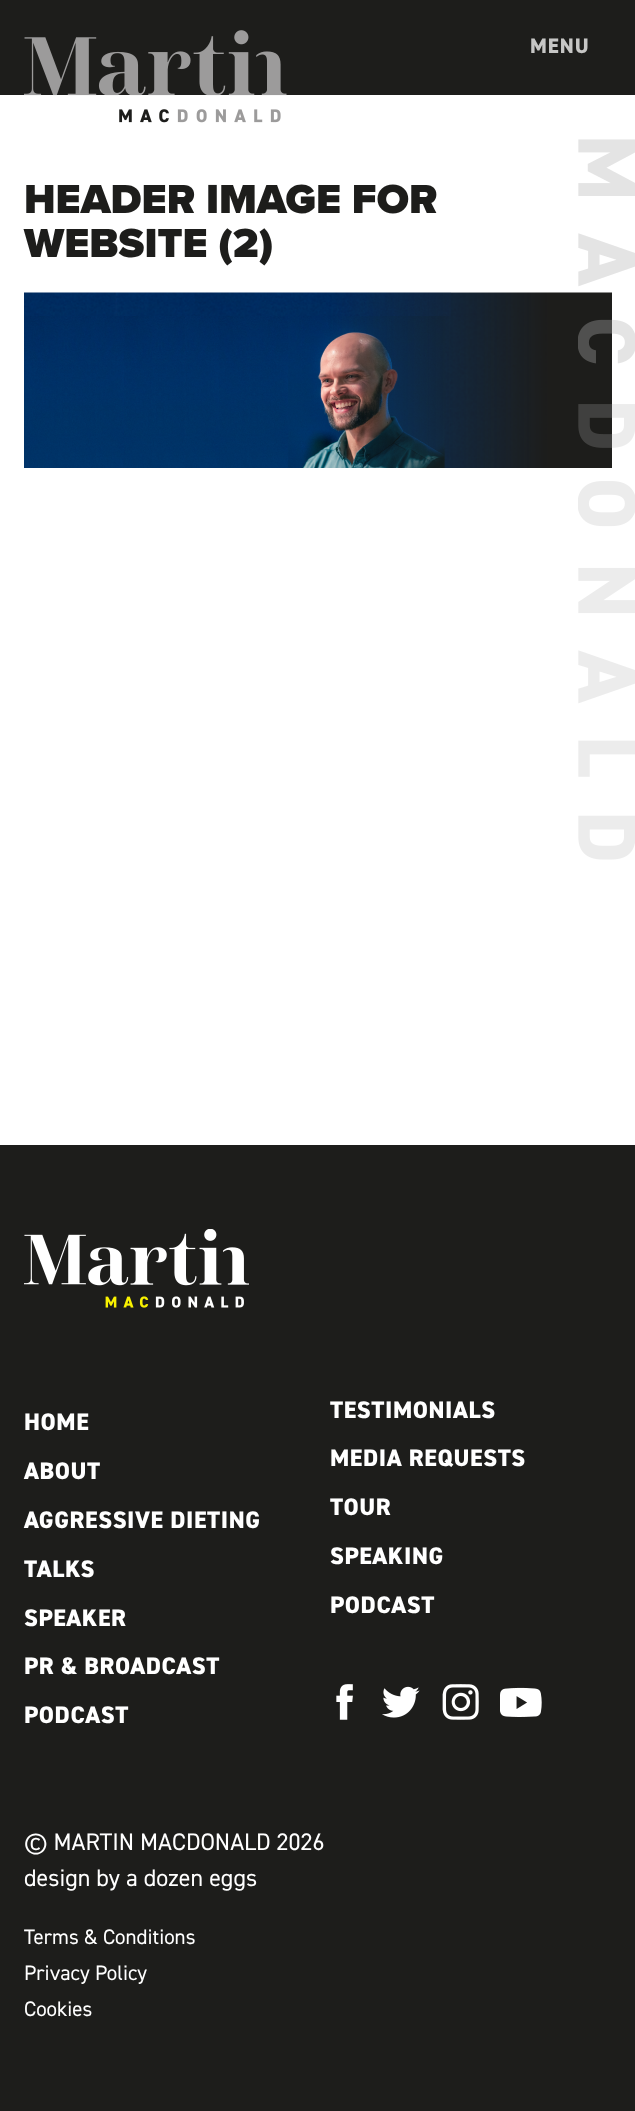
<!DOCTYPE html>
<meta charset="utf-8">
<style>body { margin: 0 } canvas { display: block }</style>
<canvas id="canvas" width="635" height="2111"></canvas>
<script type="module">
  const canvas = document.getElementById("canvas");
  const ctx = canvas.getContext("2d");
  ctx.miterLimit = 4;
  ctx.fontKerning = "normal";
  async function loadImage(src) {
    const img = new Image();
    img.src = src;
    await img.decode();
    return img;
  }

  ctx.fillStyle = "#ffffff";
  ctx.fillRect(0, 0, 635, 2111);
  ctx.fillStyle = "#1d1d1b";
  ctx.fillRect(0, 0, 635, 95);
  ctx.drawImage(await loadImage("img1.png"), 24, 30, 263, 93);
  ctx.letterSpacing = "1px";
  ctx.font = "800 21px 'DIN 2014'";
  ctx.fillStyle = "#c6c6c5";
  ctx.fillText("MENU", 530, 53);
  ctx.letterSpacing = "0px";
  ctx.font = "900 42.1px Proxima Nova";
  ctx.fillStyle = "#1d1d1b";
  ctx.fillText("HEADER IMAGE FOR", 24, 213);
  ctx.fillText("WEBSITE (2)", 24, 257);
  ctx.drawImage(await loadImage("img2.png"), 24, 292, 588, 176);
  ctx.drawImage(await loadImage("img3.png"), 578, 139, 57, 721);
  ctx.fillRect(0, 1145, 635, 966);
  ctx.drawImage(await loadImage("img4.png"), 24, 1229, 225, 79);
  ctx.letterSpacing = "0.6px";
  ctx.font = "800 24px 'DIN 2014'";
  ctx.fillStyle = "#ffffff";
  ctx.fillText("TESTIMONIALS", 330, 1418);
  ctx.fillText("HOME", 24, 1430);
  ctx.fillText("MEDIA REQUESTS", 330, 1466);
  ctx.fillText("ABOUT", 24, 1479);
  ctx.fillText("TOUR", 330, 1515);
  ctx.fillText("AGGRESSIVE DIETING", 24, 1528);
  ctx.fillText("SPEAKING", 330, 1564);
  ctx.fillText("TALKS", 24, 1577);
  ctx.fillText("PODCAST", 330, 1613);
  ctx.fillText("SPEAKER", 24, 1626);
  ctx.fillText("PR & BROADCAST", 24, 1674);
  ctx.fillText("PODCAST", 24, 1723);
  ctx.drawImage(await loadImage("img5.png"), 336, 1684, 17, 36);
  ctx.drawImage(await loadImage("img6.png"), 382, 1686, 38, 32);
  ctx.drawImage(await loadImage("img7.png"), 442, 1684, 37, 36);
  ctx.drawImage(await loadImage("img8.png"), 500, 1687, 42, 30);
  ctx.letterSpacing = "0px";
  ctx.font = "24px 'DIN 2014'";
  ctx.fillText("© MARTIN MACDONALD 2026", 24, 1850);
  ctx.fillText("design by a dozen eggs", 24, 1886);
  ctx.font = "21px 'DIN 2014'";
  ctx.fillText("Terms & Conditions", 24, 1944);
  ctx.fillText("Privacy Policy", 24, 1980);
  ctx.fillText("Cookies", 24, 2016);
</script>
